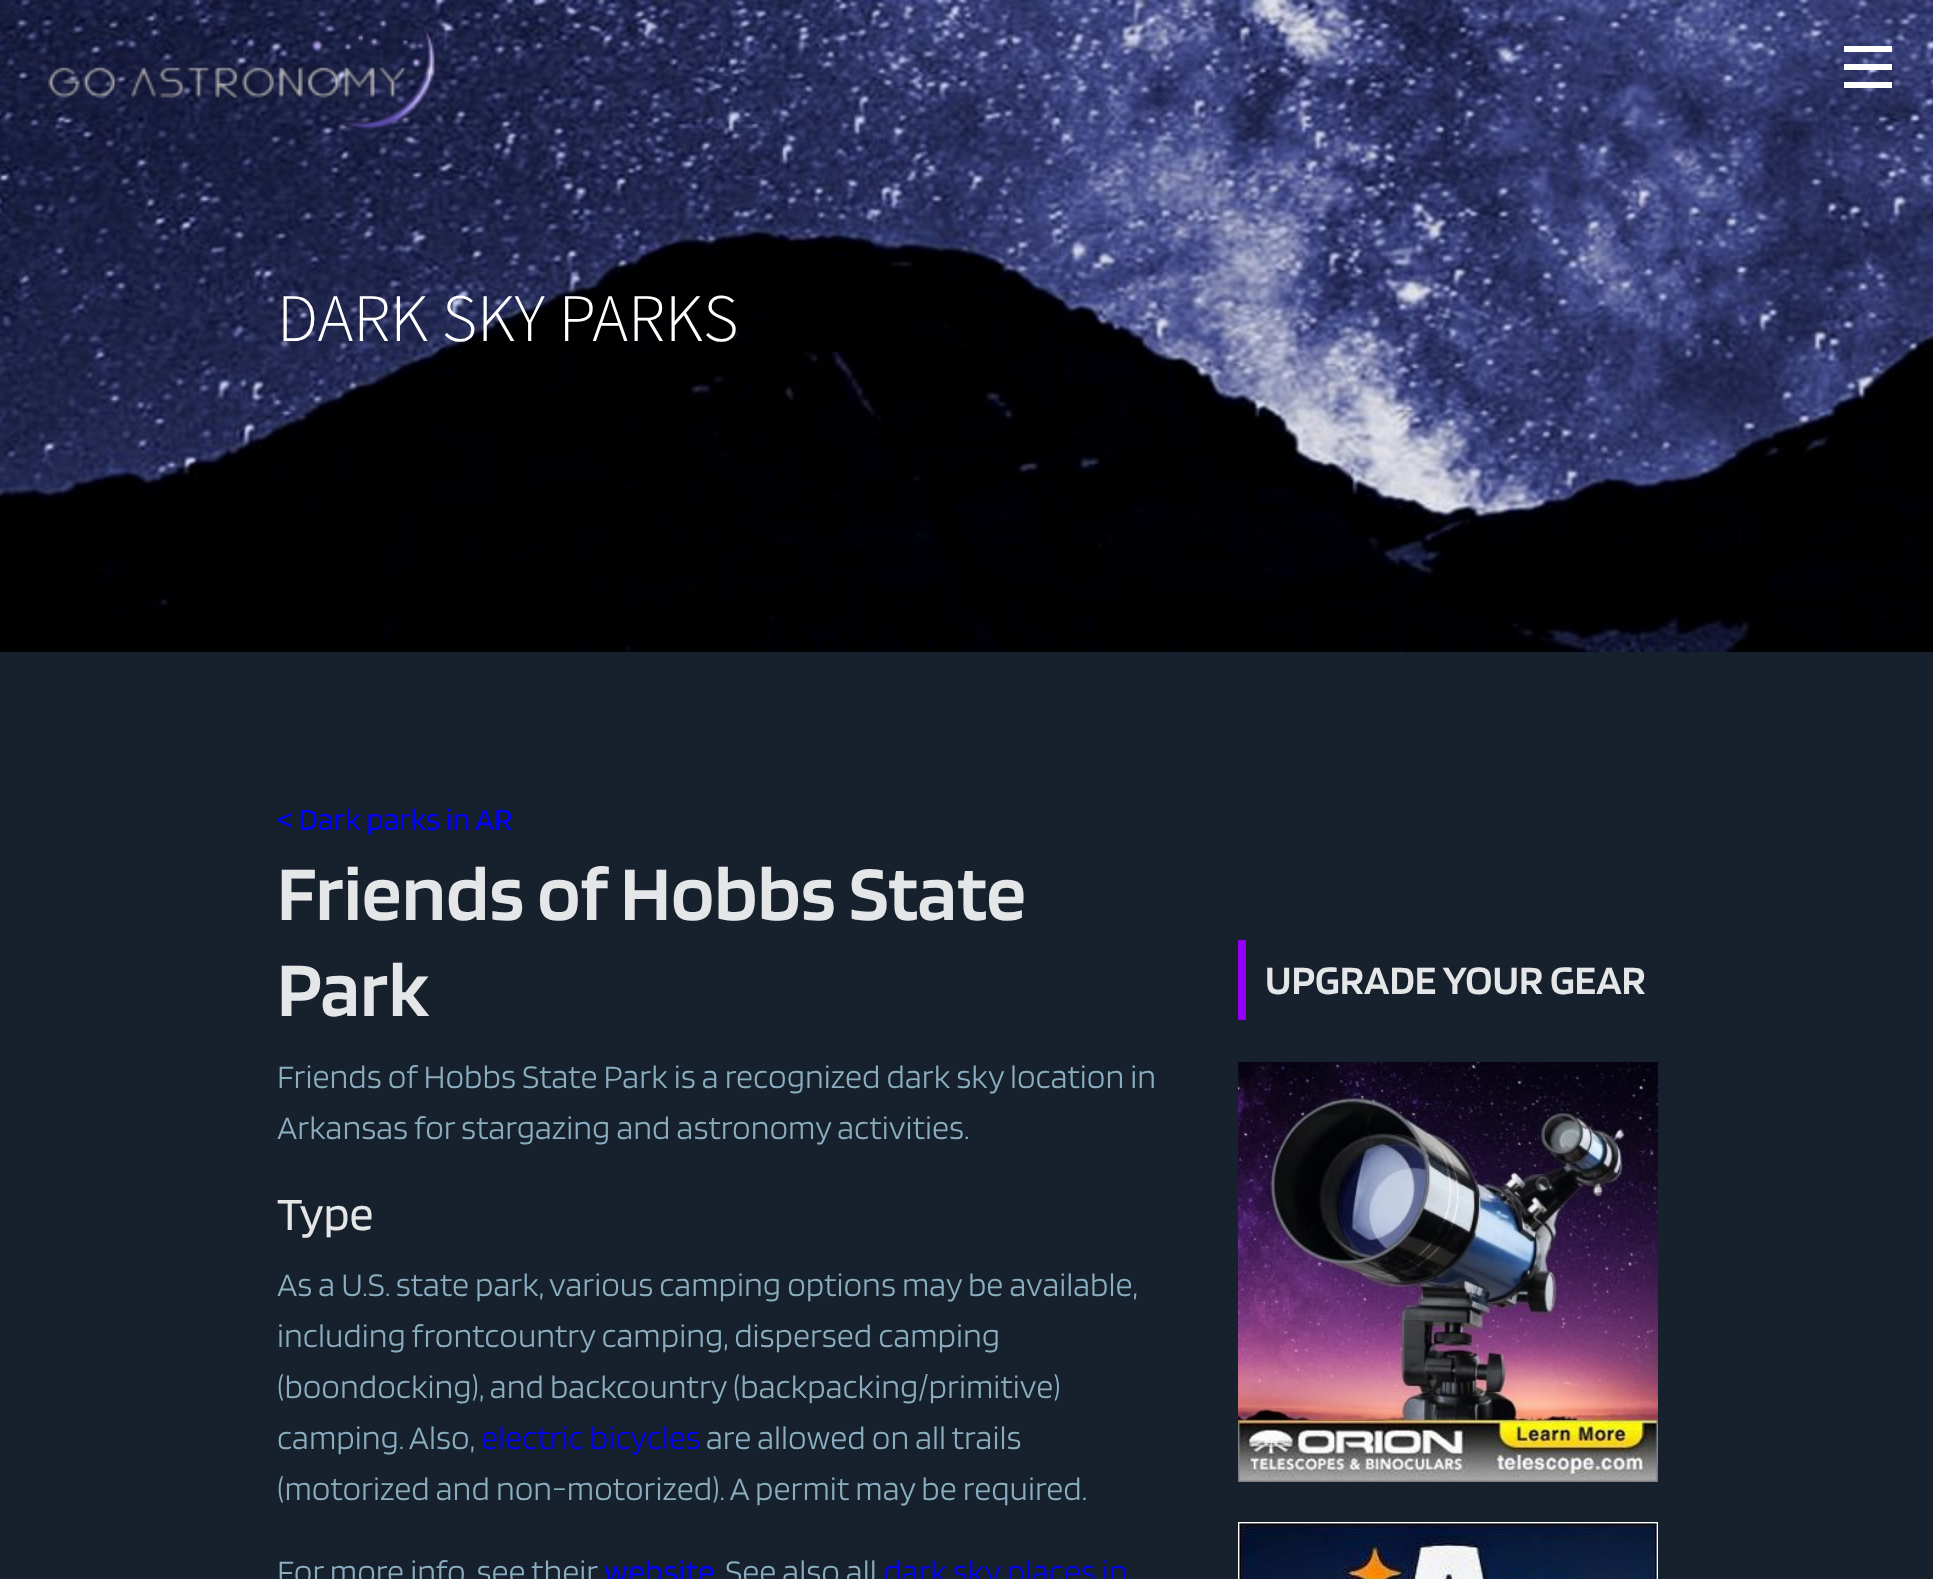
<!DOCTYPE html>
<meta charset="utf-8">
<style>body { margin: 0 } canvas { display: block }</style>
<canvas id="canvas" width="1933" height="1579"></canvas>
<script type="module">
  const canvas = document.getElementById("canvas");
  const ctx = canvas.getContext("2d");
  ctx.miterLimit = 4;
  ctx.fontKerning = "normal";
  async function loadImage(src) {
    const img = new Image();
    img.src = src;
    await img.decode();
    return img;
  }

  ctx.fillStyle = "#17212e";
  ctx.fillRect(0, 0, 1933, 1579);
  ctx.drawImage(await loadImage("img2.png"), 0, 0, 1933, 652);
  ctx.drawImage(await loadImage("img1.png"), 48, 19, 388, 111);
  ctx.fillStyle = "#ffffff";
  ctx.fillRect(1844, 64, 48, 6);
  ctx.fillRect(1844, 46, 48, 6);
  ctx.fillRect(1844, 82, 48, 6);
  ctx.font = "300 68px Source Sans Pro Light";
  ctx.fillText("DARK SKY PARKS", 277, 341);
  ctx.font = "32px Blinker";
  ctx.fillStyle = "#0000ff";
  ctx.fillText("< Dark parks in AR", 277, 830);
  ctx.font = "600 80px Blinker";
  ctx.fillStyle = "#e5e6e7";
  ctx.fillText("Friends of Hobbs State", 277, 920);
  ctx.fillText("Park", 277, 1016);
  ctx.font = "200 34px Blinker";
  ctx.fillStyle = "#8aaec0";
  ctx.fillText("Friends of Hobbs State Park is a recognized dark sky location in", 277, 1088);
  ctx.fillText("Arkansas for stargazing and astronomy activities.", 277, 1139);
  ctx.font = "48px Blinker";
  ctx.fillStyle = "#e5e6e7";
  ctx.fillText("Type", 277, 1230);
  ctx.font = "200 34px Blinker";
  ctx.fillStyle = "#8aaec0";
  ctx.fillText("As a U.S. state park, various camping options may be available,", 277, 1296);
  ctx.fillText("including frontcountry camping, dispersed camping", 277, 1347);
  ctx.fillText("(boondocking), and backcountry (backpacking/primitive)", 277, 1398);
  ctx.fillText("camping. Also,", 277, 1449);
  ctx.fillStyle = "#0000ff";
  ctx.fillText("electric bicycles", 481, 1449);
  ctx.fillStyle = "#8aaec0";
  ctx.fillText("are allowed on all trails", 706, 1449);
  ctx.fillText("(motorized and non-motorized). A permit may be required.", 277, 1500);
  ctx.fillText("For more info, see their", 277, 1583);
  ctx.font = "34px Blinker";
  ctx.fillStyle = "#0000ff";
  ctx.fillText("website", 604, 1583);
  ctx.font = "200 34px Blinker";
  ctx.fillStyle = "#8aaec0";
  ctx.fillText("See also all", 725, 1583);
  ctx.fillStyle = "#0000ff";
  ctx.fillText("dark sky places in", 883, 1583);
  ctx.fillStyle = "#9300f5";
  ctx.fillRect(1238, 940, 8, 80);
  ctx.font = "600 42px Blinker";
  ctx.fillStyle = "#e5e6e7";
  ctx.fillText("UPGRADE YOUR GEAR", 1265, 994);
  ctx.drawImage(await loadImage("img3.png"), 1238, 1062, 420, 420);
  ctx.drawImage(await loadImage("img4.png"), 1238, 1522, 420, 57);
</script>
